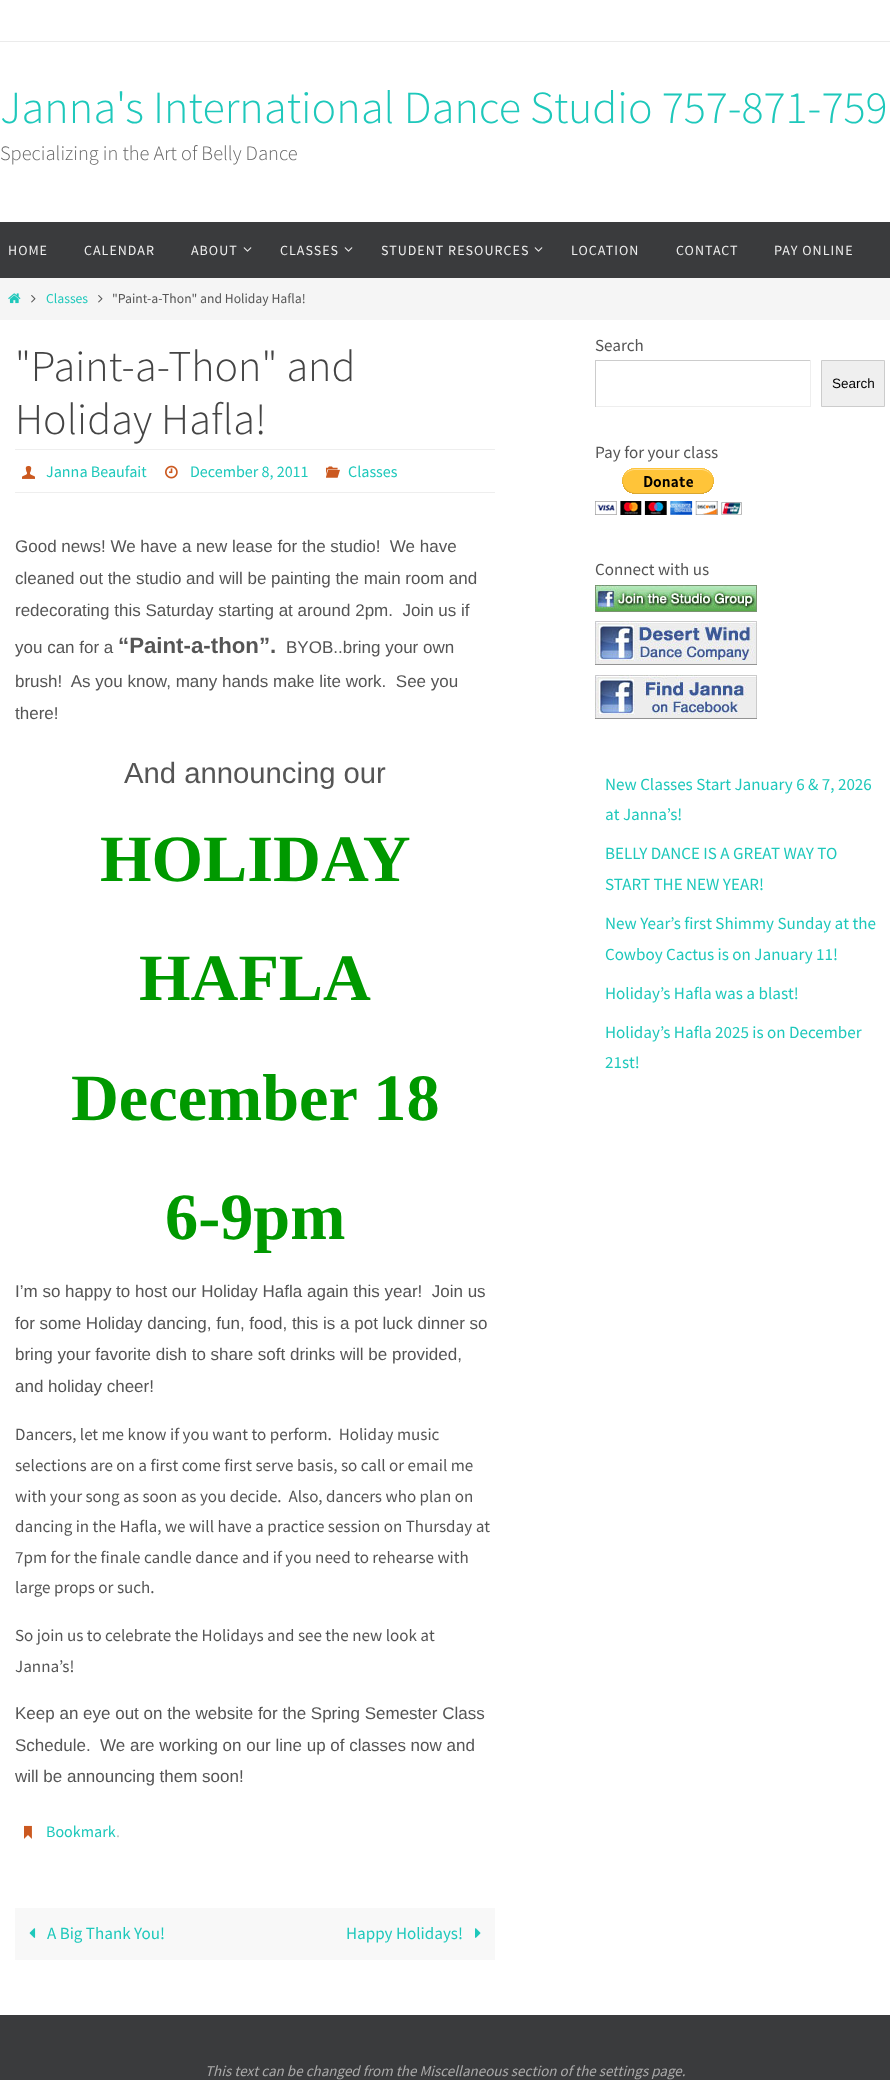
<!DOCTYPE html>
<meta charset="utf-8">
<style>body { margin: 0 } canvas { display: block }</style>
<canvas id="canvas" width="890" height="2080"></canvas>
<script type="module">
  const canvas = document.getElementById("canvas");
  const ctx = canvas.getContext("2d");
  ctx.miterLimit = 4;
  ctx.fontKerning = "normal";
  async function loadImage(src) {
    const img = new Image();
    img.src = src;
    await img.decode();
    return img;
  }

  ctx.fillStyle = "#ffffff";
  ctx.fillRect(0, 0, 890, 2080);
  ctx.fillStyle = "#ebebeb";
  ctx.fillRect(0, 41, 890, 1);
  ctx.font = "300 46px Source Sans Pro";
  ctx.fillStyle = "#1ec8bb";
  ctx.fillText("Janna's International Dance Studio 757-871-759", 0, 123);
  ctx.font = "300 20.4px Source Sans Pro";
  ctx.fillStyle = "#666666";
  ctx.fillText("Specializing in the Art of Belly Dance", 0, 160);
  ctx.fillStyle = "#3a3b3d";
  ctx.fillRect(0, 222, 890, 56);
  ctx.letterSpacing = "1px";
  ctx.font = "14px Source Sans Pro";
  ctx.fillStyle = "#eeeeee";
  ctx.fillText("HOME", 8, 255);
  ctx.fillText("CALENDAR", 84, 255);
  ctx.fillText("ABOUT", 191, 255);
  ctx.drawImage(await loadImage("img1.png"), 243, 247, 9, 5);
  ctx.fillText("CLASSES", 280, 255);
  ctx.drawImage(await loadImage("img1.png"), 344, 247, 9, 5);
  ctx.fillText("STUDENT RESOURCES", 381, 255);
  ctx.drawImage(await loadImage("img1.png"), 534, 247, 9, 5);
  ctx.fillText("LOCATION", 571, 255);
  ctx.fillText("CONTACT", 676, 255);
  ctx.fillText("PAY ONLINE", 774, 255);
  ctx.fillStyle = "#f5f5f5";
  ctx.fillRect(0, 278, 890, 42);
  ctx.drawImage(await loadImage("img2.png"), 8, 293, 13, 11);
  ctx.drawImage(await loadImage("img3.png"), 31, 295, 5, 8);
  ctx.letterSpacing = "0px";
  ctx.font = "13.6px Source Sans Pro";
  ctx.fillStyle = "#1ec8bb";
  ctx.fillText("Classes", 46, 303);
  ctx.drawImage(await loadImage("img3.png"), 98, 295, 5, 8);
  ctx.fillStyle = "#555555";
  ctx.fillText("\"Paint-a-Thon\" and Holiday Hafla!", 112, 303);
  ctx.font = "300 44px Source Sans Pro";
  ctx.fillStyle = "#444444";
  ctx.fillText("\"Paint-a-Thon\" and", 15, 381);
  ctx.fillText("Holiday Hafla!", 15, 434);
  ctx.fillStyle = "#eeeeee";
  ctx.fillRect(15, 449, 480, 1);
  ctx.fillRect(15, 492, 480, 1);
  ctx.drawImage(await loadImage("img4.png"), 22, 465, 13, 14);
  ctx.font = "16px Source Sans Pro";
  ctx.fillStyle = "#1ec8bb";
  ctx.fillText("Janna Beaufait", 46, 477);
  ctx.drawImage(await loadImage("img5.png"), 165, 465, 13, 14);
  ctx.fillText("December 8, 2011", 190, 477);
  ctx.drawImage(await loadImage("img6.png"), 326, 466, 14, 12);
  ctx.fillText("Classes", 348, 477);
  ctx.font = "17px Liberation Sans";
  ctx.fillStyle = "#555555";
  ctx.fillText("Good news! We have a new lease for the studio!  We have", 15, 552);
  ctx.fillText("cleaned out the studio and will be painting the main room and", 15, 584);
  ctx.fillText("redecorating this Saturday starting at around 2pm.  Join us if", 15, 616);
  ctx.fillText("you can for a", 15, 653);
  ctx.font = "bold 22.25px Liberation Sans";
  ctx.fillText("“Paint-a-thon”.", 118, 653);
  ctx.font = "17px Liberation Sans";
  ctx.fillText("BYOB..bring your own", 286, 653);
  ctx.fillText("brush!  As you know, many hands make lite work.  See you", 15, 687);
  ctx.fillText("there!", 15, 719);
  ctx.font = "29.25px Liberation Sans";
  ctx.fillText("And announcing our", 124, 783);
  ctx.font = "bold 66.25px Liberation Serif";
  ctx.fillStyle = "#009900";
  ctx.fillText("HOLIDAY", 100, 881);
  ctx.fillText("HAFLA", 139, 1000);
  ctx.fillText("December 18", 71, 1120);
  ctx.fillText("6-9pm", 165, 1239);
  ctx.font = "17px Liberation Sans";
  ctx.fillStyle = "#555555";
  ctx.fillText("I’m so happy to host our Holiday Hafla again this year!  Join us", 15, 1297);
  ctx.fillText("for some Holiday dancing, fun, food, this is a pot luck dinner so", 15, 1329);
  ctx.fillText("bring your favorite dish to share soft drinks will be provided,", 15, 1360);
  ctx.fillText("and holiday cheer!", 15, 1392);
  ctx.font = "17px Source Sans Pro";
  ctx.fillText("Dancers, let me know if you want to perform.  Holiday music", 15, 1440);
  ctx.fillText("selections are on a first come first serve basis, so call or email me", 15, 1471);
  ctx.fillText("with your song as soon as you decide.  Also, dancers who plan on", 15, 1502);
  ctx.fillText("dancing in the Hafla, we will have a practice session on Thursday at", 15, 1532);
  ctx.fillText("7pm for the finale candle dance and if you need to rehearse with", 15, 1563);
  ctx.fillText("large props or such.", 15, 1593);
  ctx.fillText("So join us to celebrate the Holidays and see the new look at", 15, 1641);
  ctx.fillText("Janna’s!", 15, 1672);
  ctx.font = "17px Liberation Sans";
  ctx.fillText("Keep an eye out on the website for the Spring Semester Class", 15, 1719);
  ctx.fillText("Schedule.  We are working on our line up of classes now and", 15, 1751);
  ctx.fillText("will be announcing them soon!", 15, 1782);
  ctx.drawImage(await loadImage("img7.png"), 24, 1825, 8, 14);
  ctx.font = "16px Source Sans Pro";
  ctx.fillStyle = "#1ec8bb";
  ctx.fillText("Bookmark", 46, 1837);
  ctx.fillStyle = "#c1c1c1";
  ctx.fillText(".", 116, 1837);
  ctx.fillStyle = "#f8f8f8";
  ctx.fillRect(15, 1908, 480, 52);
  ctx.drawImage(await loadImage("img8.png"), 29, 1928, 7, 10);
  ctx.font = "17px Source Sans Pro";
  ctx.fillStyle = "#1ec8bb";
  ctx.fillText("A Big Thank You!", 47, 1939);
  ctx.fillText("Happy Holidays!", 346, 1939);
  ctx.drawImage(await loadImage("img9.png"), 475, 1928, 6, 10);
  ctx.fillStyle = "#555555";
  ctx.fillText("Search", 595, 351);
  ctx.fillStyle = "#cccccc";
  ctx.fillRect(595, 360, 216, 1);
  ctx.fillStyle = "#eeeeee";
  ctx.fillRect(810, 360, 1, 47);
  ctx.fillRect(595, 406, 216, 1);
  ctx.fillStyle = "#cccccc";
  ctx.fillRect(595, 360, 1, 47);
  ctx.fillStyle = "#efefef";
  ctx.beginPath();
  ctx.rect(821.5, 360.5, 63, 46);
  ctx.fill();
  ctx.strokeStyle = "#cccccc";
  ctx.stroke();
  ctx.font = "13.5px Liberation Sans";
  ctx.fillStyle = "#000000";
  ctx.fillText("Search", 832, 388);
  ctx.font = "17px Source Sans Pro";
  ctx.fillStyle = "#555555";
  ctx.fillText("Pay for your class", 595, 458);
  ctx.drawImage(await loadImage("img10.png"), 595, 468, 147, 47);
  ctx.fillText("Connect with us", 595, 575);
  ctx.drawImage(await loadImage("img11.png"), 595, 585, 162, 27);
  ctx.drawImage(await loadImage("img12.png"), 595, 621, 162, 44);
  ctx.drawImage(await loadImage("img13.png"), 595, 675, 162, 44);
  ctx.fillStyle = "#1ec8bb";
  ctx.fillText("New Classes Start January 6 & 7, 2026", 605, 790);
  ctx.fillText("at Janna’s!", 605, 820);
  ctx.fillText("BELLY DANCE IS A GREAT WAY TO", 605, 859);
  ctx.fillText("START THE NEW YEAR!", 605, 890);
  ctx.fillText("New Year’s first Shimmy Sunday at the", 605, 929);
  ctx.fillText("Cowboy Cactus is on January 11!", 605, 960);
  ctx.fillText("Holiday’s Hafla was a blast!", 605, 999);
  ctx.fillText("Holiday’s Hafla 2025 is on December", 605, 1038);
  ctx.fillText("21st!", 605, 1068);
  ctx.fillStyle = "#3a3b3d";
  ctx.fillRect(0, 2015, 890, 65);
  ctx.font = "italic 15px Source Sans Pro";
  ctx.fillStyle = "#aaaaaa";
  ctx.fillText("This text can be changed from the Miscellaneous section of the settings page.", 205, 2076);
</script>
